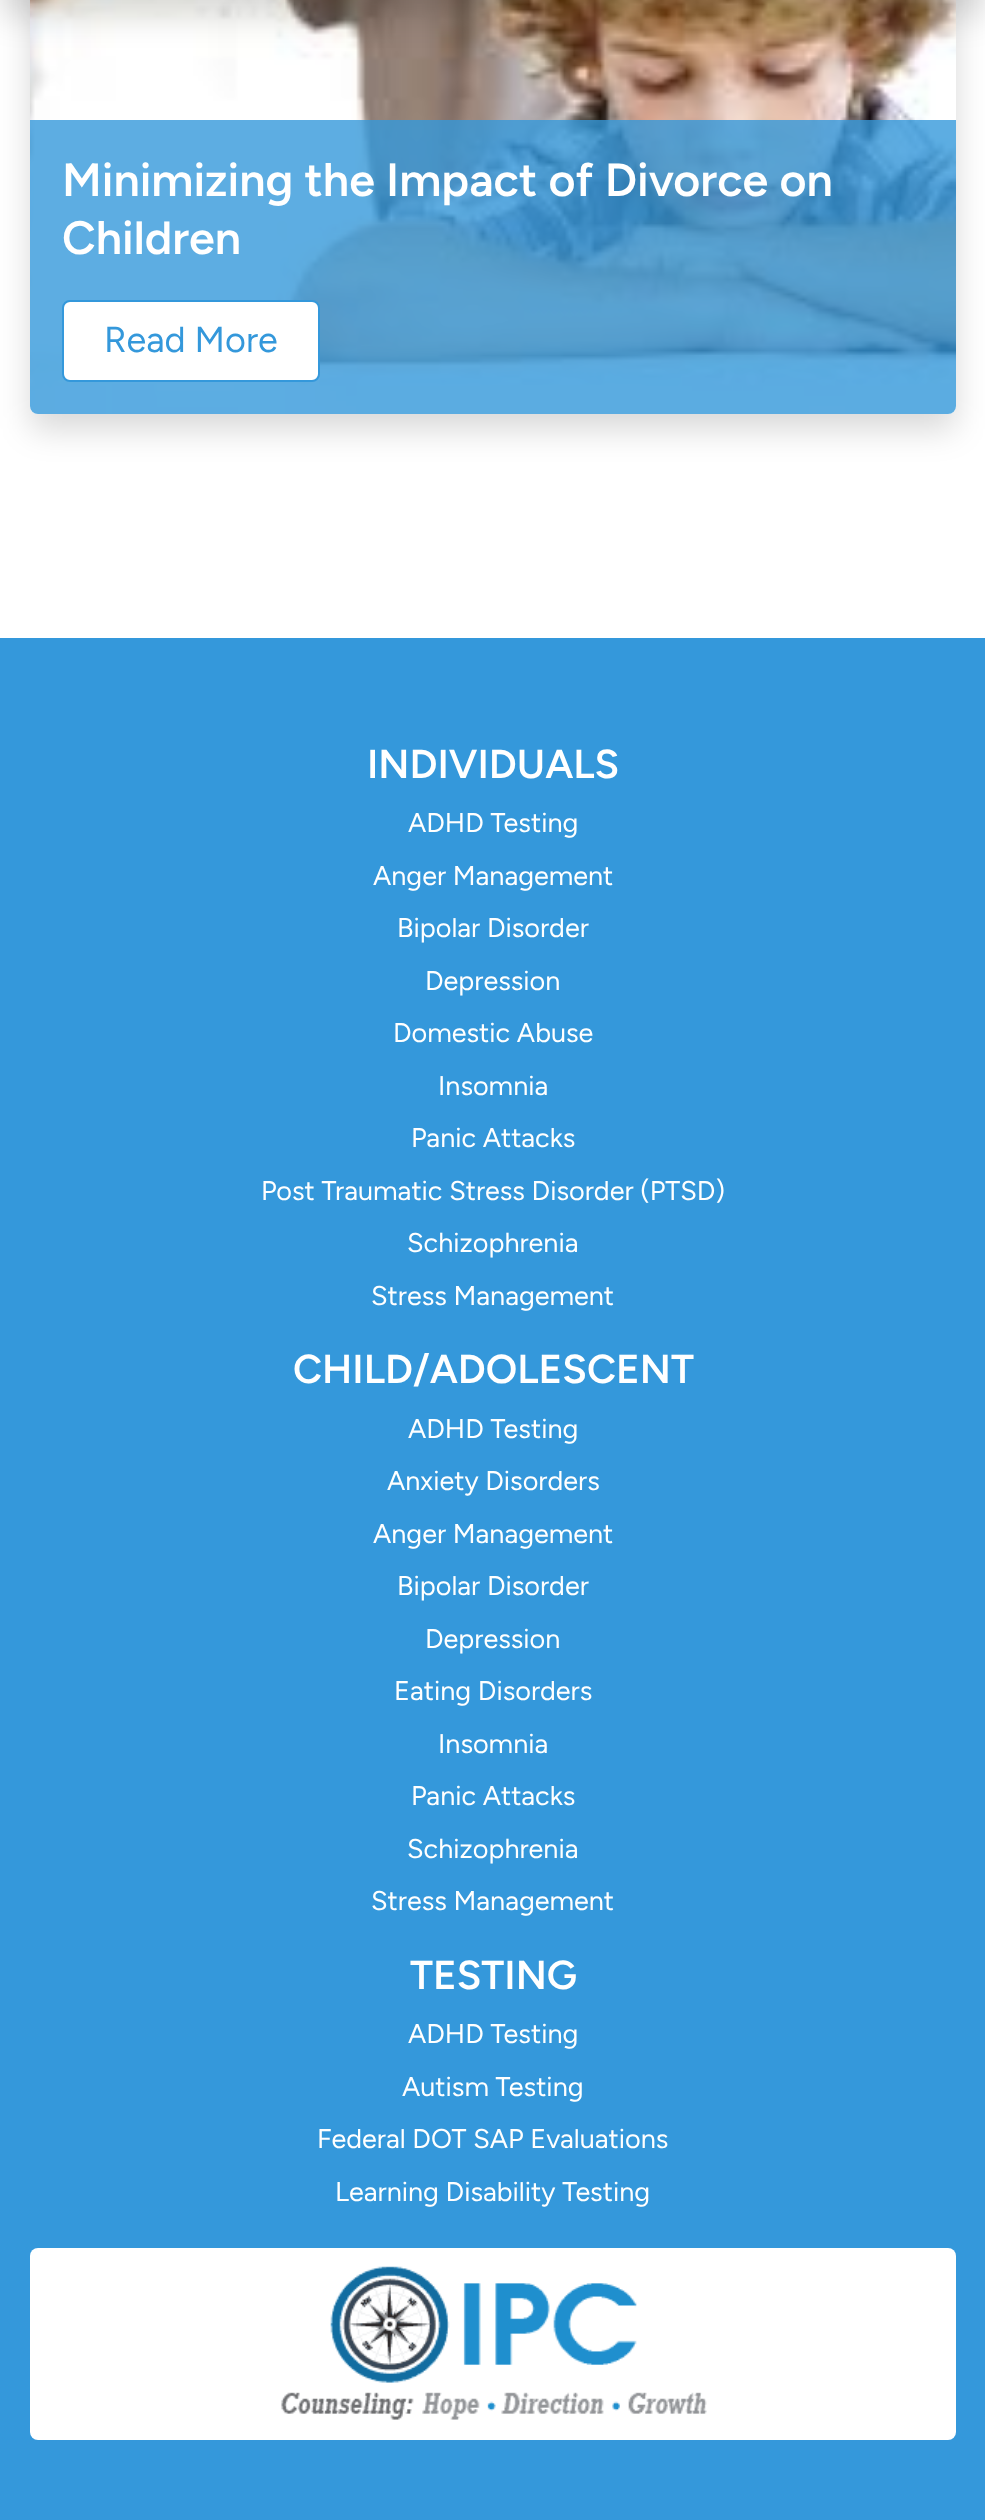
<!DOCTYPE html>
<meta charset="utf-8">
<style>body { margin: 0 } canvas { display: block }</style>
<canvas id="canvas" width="985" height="2520"></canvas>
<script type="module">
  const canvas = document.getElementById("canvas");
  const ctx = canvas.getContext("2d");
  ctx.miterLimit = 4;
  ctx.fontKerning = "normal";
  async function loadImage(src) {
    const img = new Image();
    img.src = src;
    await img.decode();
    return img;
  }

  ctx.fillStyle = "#ffffff";
  ctx.fillRect(0, 0, 985, 2520);
  ctx.fillStyle = "rgba(0, 0, 0, 0.15)";
  ctx.filter = "blur(16px)";
  ctx.beginPath();
  ctx.roundRect(30, -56, 926, 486, 8);
  ctx.fill();
  ctx.filter = "none";
  ctx.fillStyle = "#ffffff";
  ctx.beginPath();
  ctx.roundRect(30, -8, 926, 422, 8);
  ctx.fill();
  ctx.drawImage(await loadImage("img1.png"), 30, 0, 926, 414);
  ctx.fillStyle = "rgba(0, 0, 0, 0.15)";
  ctx.filter = "blur(16px)";
  ctx.beginPath();
  ctx.rect(0, -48, 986, 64);
  ctx.fill();
  ctx.filter = "none";
  ctx.fillStyle = "rgba(52, 152, 219, 0.8)";
  ctx.beginPath();
  ctx.roundRect(30, 120, 926, 294, [0, 0, 8, 8]);
  ctx.fill();
  ctx.font = "600 46.6px Figtree";
  ctx.fillStyle = "#ffffff";
  ctx.fillText("Minimizing the Impact of Divorce on", 62, 196);
  ctx.fillText("Children", 62, 254);
  ctx.beginPath();
  ctx.roundRect(63, 301, 256, 80, 7);
  ctx.fill();
  ctx.strokeStyle = "#3498db";
  ctx.lineWidth = 2;
  ctx.stroke();
  ctx.font = "300 36px Figtree";
  ctx.fillStyle = "#3498db";
  ctx.fillText("Read More", 104, 352);
  ctx.fillRect(0, 638, 985, 1882);
  ctx.font = "600 40.25px Figtree";
  ctx.fillStyle = "#ffffff";
  ctx.fillText("INDIVIDUALS", 367, 778);
  ctx.font = "300 27px Figtree";
  ctx.fillText("ADHD Testing", 408, 832);
  ctx.fillText("Anger Management", 373, 885);
  ctx.fillText("Bipolar Disorder", 397, 937);
  ctx.fillText("Depression", 425, 990);
  ctx.fillText("Domestic Abuse", 393, 1042);
  ctx.fillText("Insomnia", 438, 1095);
  ctx.fillText("Panic Attacks", 411, 1147);
  ctx.fillText("Post Traumatic Stress Disorder (PTSD)", 261, 1200);
  ctx.fillText("Schizophrenia", 407, 1252);
  ctx.fillText("Stress Management", 371, 1305);
  ctx.font = "600 40.25px Figtree";
  ctx.fillText("CHILD/ADOLESCENT", 293, 1383);
  ctx.font = "300 27px Figtree";
  ctx.fillText("ADHD Testing", 408, 1438);
  ctx.fillText("Anxiety Disorders", 387, 1490);
  ctx.fillText("Anger Management", 373, 1543);
  ctx.fillText("Bipolar Disorder", 397, 1595);
  ctx.fillText("Depression", 425, 1648);
  ctx.fillText("Eating Disorders", 394, 1700);
  ctx.fillText("Insomnia", 438, 1753);
  ctx.fillText("Panic Attacks", 411, 1805);
  ctx.fillText("Schizophrenia", 407, 1858);
  ctx.fillText("Stress Management", 371, 1910);
  ctx.font = "600 40.25px Figtree";
  ctx.fillText("TESTING", 410, 1989);
  ctx.font = "300 27px Figtree";
  ctx.fillText("ADHD Testing", 408, 2043);
  ctx.fillText("Autism Testing", 402, 2096);
  ctx.fillText("Federal DOT SAP Evaluations", 317, 2148);
  ctx.fillText("Learning Disability Testing", 335, 2201);
  ctx.beginPath();
  ctx.roundRect(30, 2248, 926, 192, 8);
  ctx.fill();
  ctx.drawImage(await loadImage("img2.png"), 281, 2266, 426, 154);
</script>
